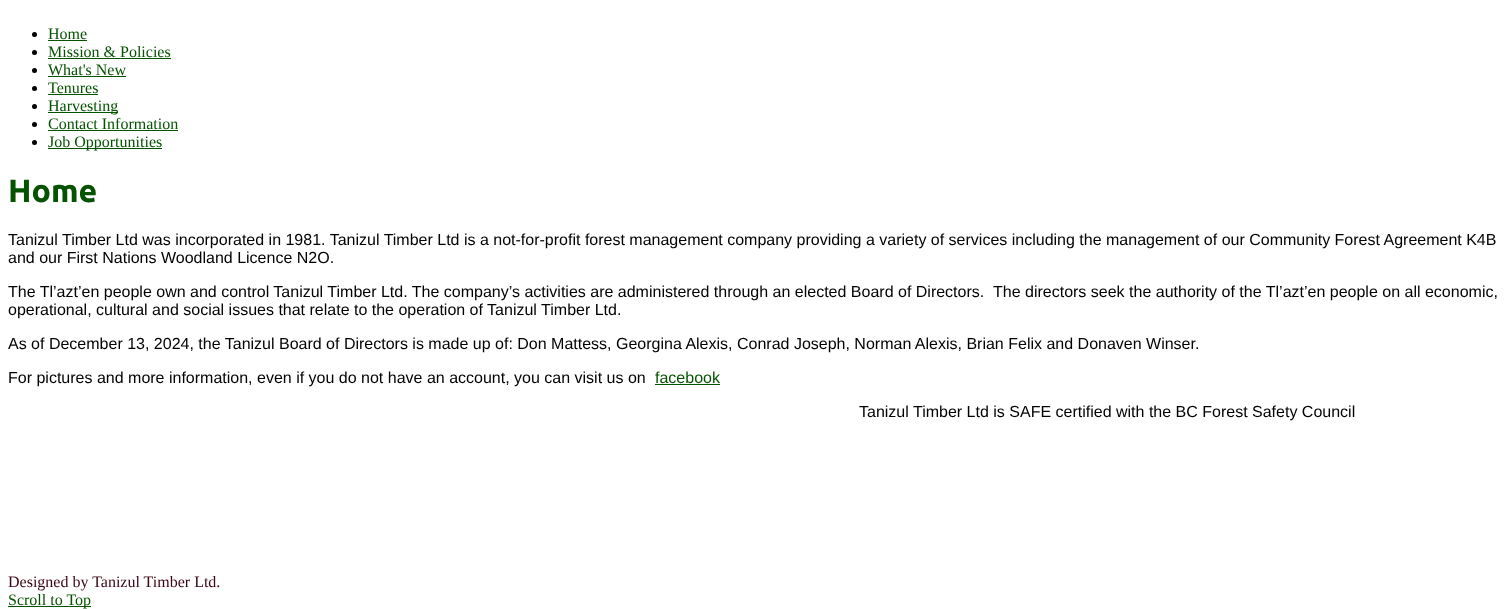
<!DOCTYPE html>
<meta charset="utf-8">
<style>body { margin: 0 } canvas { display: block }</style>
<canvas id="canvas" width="1512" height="609"></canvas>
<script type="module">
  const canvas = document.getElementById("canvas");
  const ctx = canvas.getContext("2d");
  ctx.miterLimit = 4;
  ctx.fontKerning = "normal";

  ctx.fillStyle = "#ffffff";
  ctx.fillRect(0, 0, 1512, 609);
  ctx.fillStyle = "#000000";
  ctx.beginPath();
  ctx.arc(34.5, 34.5, 2.5, 0, Math.PI * 2);
  ctx.fill();
  ctx.font = "16px Liberation Serif";
  ctx.fillStyle = "#055200";
  ctx.fillText("Home", 48, 39);
  ctx.fillRect(48, 40, 39, 1);
  ctx.fillStyle = "#000000";
  ctx.beginPath();
  ctx.arc(34.5, 52.5, 2.5, 0, Math.PI * 2);
  ctx.fill();
  ctx.fillStyle = "#055200";
  ctx.fillText("Mission & Policies", 48, 57);
  ctx.fillRect(48, 58, 123, 1);
  ctx.fillStyle = "#000000";
  ctx.beginPath();
  ctx.arc(34.5, 70.5, 2.5, 0, Math.PI * 2);
  ctx.fill();
  ctx.fillStyle = "#055200";
  ctx.fillText("What's New", 48, 75);
  ctx.fillRect(48, 76, 78, 1);
  ctx.fillStyle = "#000000";
  ctx.beginPath();
  ctx.arc(34.5, 88.5, 2.5, 0, Math.PI * 2);
  ctx.fill();
  ctx.fillStyle = "#055200";
  ctx.fillText("Tenures", 48, 93);
  ctx.fillRect(48, 94, 50, 1);
  ctx.fillStyle = "#000000";
  ctx.beginPath();
  ctx.arc(34.5, 106.5, 2.5, 0, Math.PI * 2);
  ctx.fill();
  ctx.fillStyle = "#055200";
  ctx.fillRect(48, 112, 70, 1);
  ctx.fillText("Harvesting", 48, 111);
  ctx.fillStyle = "#000000";
  ctx.beginPath();
  ctx.arc(34.5, 124.5, 2.5, 0, Math.PI * 2);
  ctx.fill();
  ctx.fillStyle = "#055200";
  ctx.fillText("Contact Information", 48, 129);
  ctx.fillRect(48, 130, 130, 1);
  ctx.fillStyle = "#000000";
  ctx.beginPath();
  ctx.arc(34.5, 142.5, 2.5, 0, Math.PI * 2);
  ctx.fill();
  ctx.fillStyle = "#055200";
  ctx.fillRect(48, 148, 114, 1);
  ctx.fillText("Job Opportunities", 48, 147);
  ctx.font = "bold 32px Ubuntu";
  ctx.fillText("Home", 8, 202);
  ctx.font = "16px Liberation Sans";
  ctx.fillStyle = "#000000";
  ctx.fillText("Tanizul Timber Ltd was incorporated in 1981. Tanizul Timber Ltd is a not-for-profit forest management company providing a variety of services including the management of our Community Forest Agreement K4B", 8, 245);
  ctx.fillText("and our First Nations Woodland Licence N2O.", 8, 263);
  ctx.fillText("The Tl’azt’en people own and control Tanizul Timber Ltd. The company’s activities are administered through an elected Board of Directors.", 8, 297);
  ctx.fillText("The directors seek the authority of the Tl’azt’en people on all economic,", 993, 297);
  ctx.fillText("operational, cultural and social issues that relate to the operation of Tanizul Timber Ltd.", 8, 315);
  ctx.fillText("As of December 13, 2024, the Tanizul Board of Directors is made up of: Don Mattess, Georgina Alexis, Conrad Joseph, Norman Alexis, Brian Felix and Donaven Winser.", 8, 349);
  ctx.fillText("For pictures and more information, even if you do not have an account, you can visit us on", 8, 383);
  ctx.fillStyle = "#055200";
  ctx.fillText("facebook", 655, 383);
  ctx.fillRect(655, 384, 65, 1);
  ctx.fillStyle = "#000000";
  ctx.fillText("Tanizul Timber Ltd is SAFE certified with the BC Forest Safety Council", 859, 417);
  ctx.font = "16px Liberation Serif";
  ctx.fillStyle = "#3b0413";
  ctx.fillText("Designed by Tanizul Timber Ltd.", 8, 587);
  ctx.fillStyle = "#055200";
  ctx.fillRect(8, 606, 83, 1);
  ctx.fillText("Scroll to Top", 8, 605);
</script>
